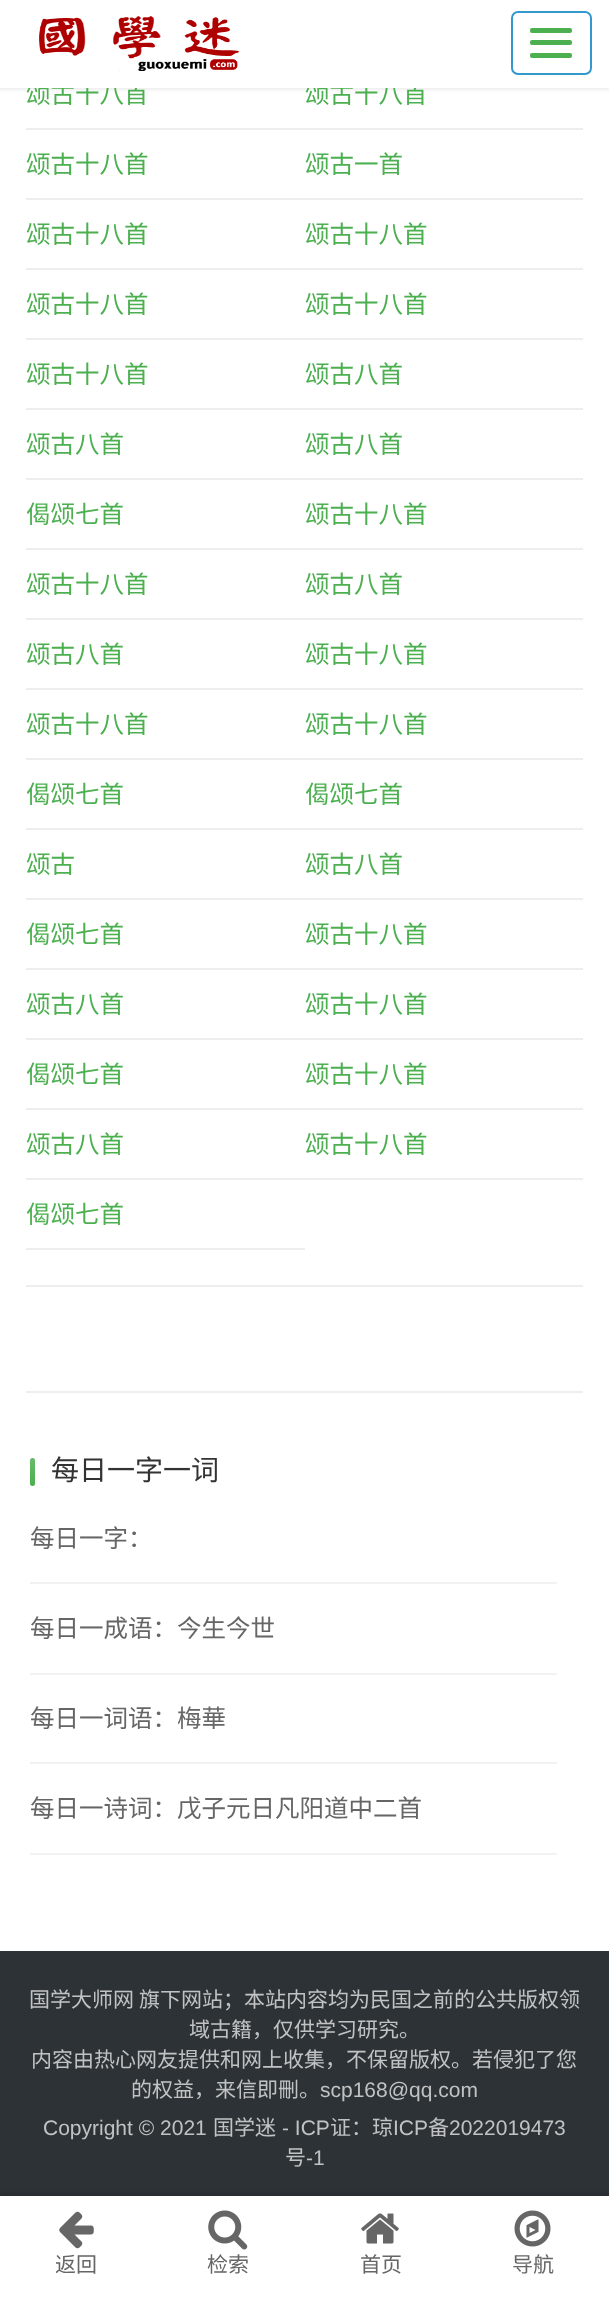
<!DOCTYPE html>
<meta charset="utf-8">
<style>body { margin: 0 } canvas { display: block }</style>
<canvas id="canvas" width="609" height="2300"></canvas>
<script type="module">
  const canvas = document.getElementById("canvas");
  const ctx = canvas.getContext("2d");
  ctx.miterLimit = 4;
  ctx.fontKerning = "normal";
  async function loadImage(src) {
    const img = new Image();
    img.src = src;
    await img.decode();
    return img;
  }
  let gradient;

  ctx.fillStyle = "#ffffff";
  ctx.fillRect(0, 0, 609, 2300);
  ctx.fillStyle = "rgba(0, 0, 0, 0.1)";
  ctx.filter = "blur(2.5px)";
  ctx.beginPath();
  ctx.rect(-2, -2, 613, 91);
  ctx.fill();
  ctx.filter = "none";
  ctx.font = "24.5px Noto Sans CJK SC";
  ctx.fillStyle = "#4caf50";
  ctx.fillText("颂古十八首", 26, 103);
  ctx.fillText("颂古十八首", 305, 103);
  ctx.fillStyle = "#ffffff";
  ctx.fillRect(0, 0, 609, 88);
  ctx.drawImage(await loadImage("img1.png"), 39, 16, 200, 55);
  ctx.beginPath();
  ctx.roundRect(512, 12, 79, 62, 6);
  ctx.strokeStyle = "#3399cc";
  ctx.lineWidth = 2;
  ctx.stroke();
  ctx.fillStyle = "#4caf50";
  ctx.beginPath();
  ctx.roundRect(530, 28, 42, 5, 2);
  ctx.fill();
  ctx.beginPath();
  ctx.roundRect(530, 40, 42, 5, 2);
  ctx.fill();
  ctx.beginPath();
  ctx.roundRect(530, 53, 42, 5, 2);
  ctx.fill();
  ctx.fillStyle = "#eeeeee";
  ctx.fillRect(26, 128, 557, 2);
  ctx.fillRect(26, 198, 557, 2);
  ctx.fillStyle = "#4caf50";
  ctx.fillText("颂古十八首", 26, 173);
  ctx.fillText("颂古一首", 305, 173);
  ctx.fillStyle = "#eeeeee";
  ctx.fillRect(26, 268, 557, 2);
  ctx.fillStyle = "#4caf50";
  ctx.fillText("颂古十八首", 26, 243);
  ctx.fillText("颂古十八首", 305, 243);
  ctx.fillStyle = "#eeeeee";
  ctx.fillRect(26, 338, 557, 2);
  ctx.fillStyle = "#4caf50";
  ctx.fillText("颂古十八首", 26, 313);
  ctx.fillText("颂古十八首", 305, 313);
  ctx.fillStyle = "#eeeeee";
  ctx.fillRect(26, 408, 557, 2);
  ctx.fillStyle = "#4caf50";
  ctx.fillText("颂古十八首", 26, 383);
  ctx.fillText("颂古八首", 305, 383);
  ctx.fillStyle = "#eeeeee";
  ctx.fillRect(26, 478, 557, 2);
  ctx.fillStyle = "#4caf50";
  ctx.fillText("颂古八首", 26, 453);
  ctx.fillText("颂古八首", 305, 453);
  ctx.fillStyle = "#eeeeee";
  ctx.fillRect(26, 548, 557, 2);
  ctx.fillStyle = "#4caf50";
  ctx.fillText("偈颂七首", 26, 523);
  ctx.fillText("颂古十八首", 305, 523);
  ctx.fillStyle = "#eeeeee";
  ctx.fillRect(26, 618, 557, 2);
  ctx.fillStyle = "#4caf50";
  ctx.fillText("颂古十八首", 26, 593);
  ctx.fillText("颂古八首", 305, 593);
  ctx.fillStyle = "#eeeeee";
  ctx.fillRect(26, 688, 557, 2);
  ctx.fillStyle = "#4caf50";
  ctx.fillText("颂古八首", 26, 663);
  ctx.fillText("颂古十八首", 305, 663);
  ctx.fillStyle = "#eeeeee";
  ctx.fillRect(26, 758, 557, 2);
  ctx.fillStyle = "#4caf50";
  ctx.fillText("颂古十八首", 26, 733);
  ctx.fillText("颂古十八首", 305, 733);
  ctx.fillStyle = "#eeeeee";
  ctx.fillRect(26, 828, 557, 2);
  ctx.fillStyle = "#4caf50";
  ctx.fillText("偈颂七首", 26, 803);
  ctx.fillText("偈颂七首", 305, 803);
  ctx.fillStyle = "#eeeeee";
  ctx.fillRect(26, 898, 557, 2);
  ctx.fillStyle = "#4caf50";
  ctx.fillText("颂古", 26, 873);
  ctx.fillText("颂古八首", 305, 873);
  ctx.fillStyle = "#eeeeee";
  ctx.fillRect(26, 968, 557, 2);
  ctx.fillStyle = "#4caf50";
  ctx.fillText("偈颂七首", 26, 943);
  ctx.fillText("颂古十八首", 305, 943);
  ctx.fillStyle = "#eeeeee";
  ctx.fillRect(26, 1038, 557, 2);
  ctx.fillStyle = "#4caf50";
  ctx.fillText("颂古八首", 26, 1013);
  ctx.fillText("颂古十八首", 305, 1013);
  ctx.fillStyle = "#eeeeee";
  ctx.fillRect(26, 1108, 557, 2);
  ctx.fillStyle = "#4caf50";
  ctx.fillText("偈颂七首", 26, 1083);
  ctx.fillText("颂古十八首", 305, 1083);
  ctx.fillStyle = "#eeeeee";
  ctx.fillRect(26, 1178, 557, 2);
  ctx.fillStyle = "#4caf50";
  ctx.fillText("颂古八首", 26, 1153);
  ctx.fillText("颂古十八首", 305, 1153);
  ctx.fillStyle = "#eeeeee";
  ctx.fillRect(26, 1248, 279, 2);
  ctx.fillStyle = "#4caf50";
  ctx.fillText("偈颂七首", 26, 1223);
  ctx.fillStyle = "#eeeeee";
  ctx.fillRect(26, 1285, 557, 2);
  ctx.fillRect(26, 1391, 557, 2);
  ctx.fillStyle = "#4caf50";
  ctx.beginPath();
  ctx.roundRect(30, 1458, 5, 28, 2.5);
  ctx.fill();
  gradient = ctx.createLinearGradient(32, 1458, 32, 1486);
  gradient.addColorStop(0, "rgba(255, 255, 255, 0.15)");
  gradient.addColorStop(1, "rgba(255, 255, 255, 0)");
  ctx.fillStyle = gradient;
  ctx.beginPath();
  ctx.roundRect(30, 1458, 5, 28, 2.5);
  ctx.fill();
  ctx.font = "28px Noto Sans CJK SC";
  ctx.fillStyle = "#333333";
  ctx.fillText("每日一字一词", 51, 1480);
  ctx.fillStyle = "#f2f2f2";
  ctx.fillRect(30, 1582, 527, 2);
  ctx.font = "24.5px Noto Sans CJK SC";
  ctx.fillStyle = "#666666";
  ctx.fillText("每日一字：", 30, 1547);
  ctx.fillStyle = "#f2f2f2";
  ctx.fillRect(30, 1673, 527, 2);
  ctx.fillStyle = "#666666";
  ctx.fillText("每日一成语：今生今世", 30, 1637);
  ctx.fillStyle = "#f2f2f2";
  ctx.fillRect(30, 1762, 527, 2);
  ctx.fillStyle = "#666666";
  ctx.fillText("每日一词语：梅華", 30, 1727);
  ctx.fillStyle = "#f2f2f2";
  ctx.fillRect(30, 1853, 527, 2);
  ctx.fillStyle = "#666666";
  ctx.fillText("每日一诗词：戊子元日凡阳道中二首", 30, 1817);
  ctx.fillStyle = "#2d3236";
  ctx.fillRect(0, 1951, 609, 245);
  ctx.font = "21px Noto Sans CJK SC";
  ctx.fillStyle = "#c0c2c3";
  ctx.fillText("国学大师网", 29, 2007);
  ctx.fillText("旗下网站；本站内容均为民国之前的公共版权领", 139, 2007);
  ctx.fillText("域古籍，仅供学习研究。", 189, 2037);
  ctx.fillText("内容由热心网友提供和网上收集，不保留版权。若侵犯了您", 31, 2067);
  ctx.fillText("的权益，来信即刪。", 131, 2097);
  ctx.font = "21px Liberation Sans";
  ctx.fillText("scp168@qq.com", 320, 2097);
  ctx.fillText("Copyright © 2021", 43, 2135);
  ctx.font = "21px Noto Sans CJK SC";
  ctx.fillText("国学迷", 213, 2135);
  ctx.font = "21px Liberation Sans";
  ctx.fillText("- ICP", 282, 2135);
  ctx.font = "21px Noto Sans CJK SC";
  ctx.fillText("证：琼", 330, 2135);
  ctx.font = "21px Liberation Sans";
  ctx.fillText("ICP", 393, 2135);
  ctx.font = "21px Noto Sans CJK SC";
  ctx.fillText("备", 428, 2135);
  ctx.font = "21px Liberation Sans";
  ctx.fillText("2022019473", 449, 2135);
  ctx.font = "21px Noto Sans CJK SC";
  ctx.fillText("号", 285, 2165);
  ctx.font = "21px Liberation Sans";
  ctx.fillText("-1", 306, 2165);
  ctx.fillStyle = "rgba(0, 0, 0, 0.12)";
  ctx.filter = "blur(2.5px)";
  ctx.beginPath();
  ctx.rect(0, 2193, 609, 105);
  ctx.fill();
  ctx.filter = "none";
  ctx.fillStyle = "#ffffff";
  ctx.fillRect(0, 2196, 609, 104);
  ctx.drawImage(await loadImage("img2.png"), 59, 2211, 35, 38);
  ctx.font = "21px Noto Sans CJK SC";
  ctx.fillStyle = "#666666";
  ctx.fillText("返回", 55, 2272);
  ctx.drawImage(await loadImage("img3.png"), 208, 2210, 40, 40);
  ctx.fillText("检索", 207, 2272);
  ctx.drawImage(await loadImage("img4.png"), 361, 2213, 38, 31);
  ctx.fillText("首页", 360, 2272);
  ctx.drawImage(await loadImage("img5.png"), 514, 2210, 37, 37);
  ctx.fillText("导航", 512, 2272);
</script>
